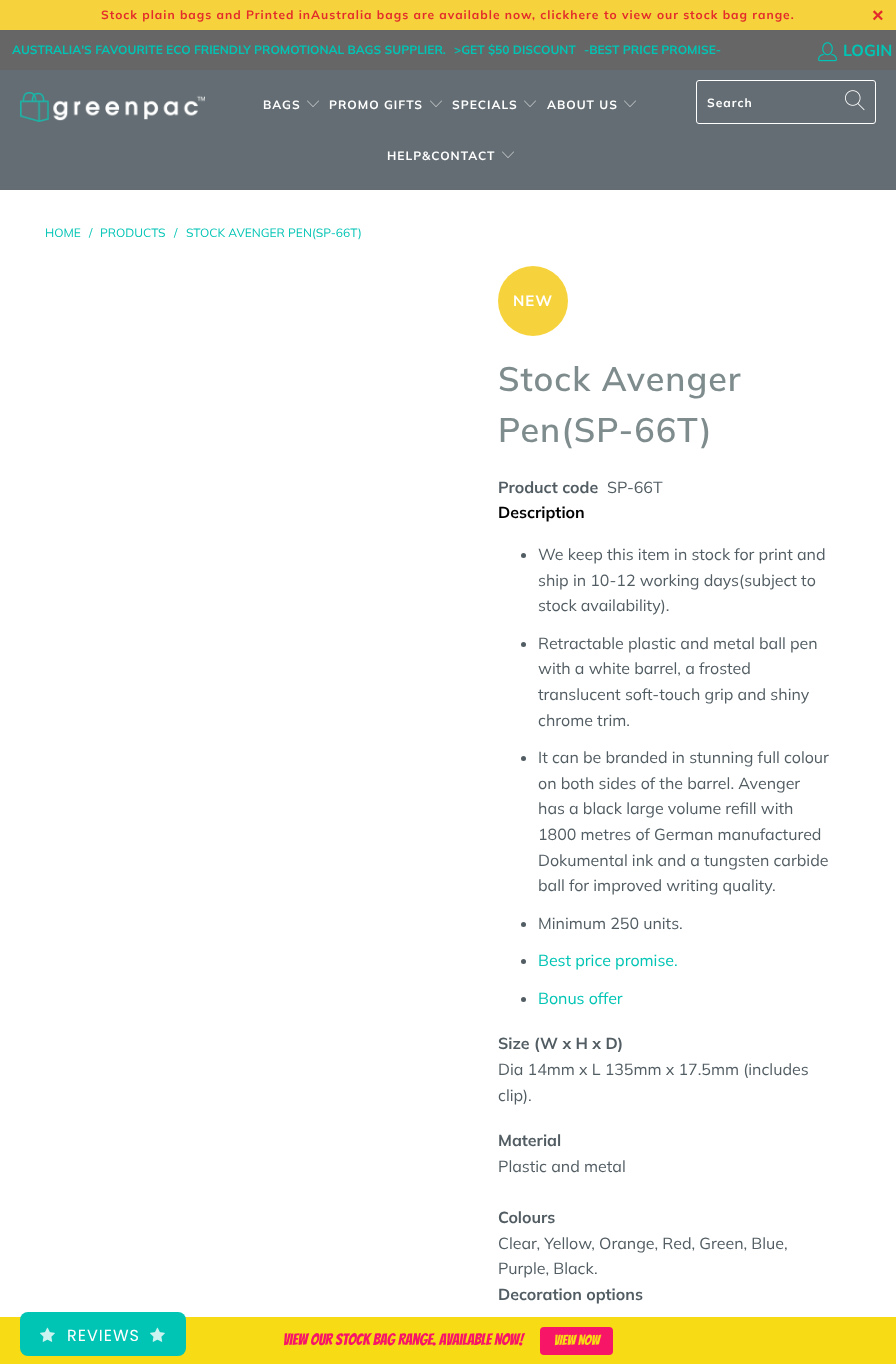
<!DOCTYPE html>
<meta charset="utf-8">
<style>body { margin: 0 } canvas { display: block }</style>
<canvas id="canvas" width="896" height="1364"></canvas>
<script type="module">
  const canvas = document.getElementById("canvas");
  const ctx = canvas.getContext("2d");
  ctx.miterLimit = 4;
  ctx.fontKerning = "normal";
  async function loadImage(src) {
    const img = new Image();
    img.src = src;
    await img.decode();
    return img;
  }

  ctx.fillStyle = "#ffffff";
  ctx.fillRect(0, 0, 896, 1364);
  ctx.fillStyle = "#f6d33c";
  ctx.fillRect(0, 0, 896, 30);
  ctx.letterSpacing = "1px";
  ctx.font = "bold 12px Muli";
  ctx.fillStyle = "#e32c2b";
  ctx.fillText("Stock plain bags and Printed inAustralia bags are available now, clickhere", 101, 19);
  ctx.fillText("to view our stock bag range.", 604, 19);
  ctx.font = "bold 20px Liberation Sans";
  ctx.fillText("×", 872, 22);
  ctx.fillStyle = "#666666";
  ctx.fillRect(0, 30, 896, 40);
  ctx.letterSpacing = "0px";
  ctx.font = "bold 12px Muli";
  ctx.fillStyle = "#00c4b4";
  ctx.fillText("AUSTRALIA'S FAVOURITE ECO FRIENDLY PROMOTIONAL BAGS SUPPLIER.", 12, 54);
  ctx.fillText(">GET $50 DISCOUNT", 454, 54);
  ctx.fillText("-BEST PRICE PROMISE-", 584, 54);
  ctx.drawImage(await loadImage("img1.png"), 818, 42, 19, 20);
  ctx.font = "bold 16px Muli";
  ctx.fillText("LOGIN", 843, 56);
  ctx.fillStyle = "#636d73";
  ctx.fillRect(0, 70, 896, 120);
  ctx.drawImage(await loadImage("img2.png"), 20, 92, 185, 30);
  ctx.letterSpacing = "1px";
  ctx.font = "bold 12px Muli";
  ctx.fillStyle = "#ffffff";
  ctx.fillText("BAGS", 263, 109);
  ctx.drawImage(await loadImage("img3.png"), 307, 100, 12, 7);
  ctx.fillText("PROMO GIFTS", 329, 109);
  ctx.drawImage(await loadImage("img3.png"), 430, 100, 12, 7);
  ctx.fillText("SPECIALS", 452, 109);
  ctx.drawImage(await loadImage("img3.png"), 524, 100, 12, 7);
  ctx.fillText("ABOUT US", 547, 109);
  ctx.drawImage(await loadImage("img3.png"), 624, 100, 12, 7);
  ctx.fillText("HELP&CONTACT", 387, 160);
  ctx.drawImage(await loadImage("img3.png"), 502, 151, 12, 7);
  ctx.beginPath();
  ctx.roundRect(696.5, 80.5, 179, 43, 2.5);
  ctx.strokeStyle = "#ffffff";
  ctx.stroke();
  ctx.fillText("Search", 707, 107);
  ctx.drawImage(await loadImage("img4.png"), 845, 90, 20, 21);
  ctx.letterSpacing = "0px";
  ctx.font = "12px Muli";
  ctx.fillStyle = "#00c4b4";
  ctx.fillText("HOME", 45, 237);
  ctx.fillText("/", 89, 237);
  ctx.fillText("PRODUCTS", 100, 237);
  ctx.fillText("/", 174, 237);
  ctx.fillText("STOCK AVENGER PEN(SP-66T)", 186, 237);
  ctx.fillStyle = "#f6d33c";
  ctx.beginPath();
  ctx.arc(533, 301, 35, 0, Math.PI * 2);
  ctx.fill();
  ctx.letterSpacing = "1px";
  ctx.font = "bold 15px Muli";
  ctx.fillStyle = "#ffffff";
  ctx.fillText("NEW", 513, 306);
  ctx.font = "600 34px Muli";
  ctx.fillStyle = "#7f8c8d";
  ctx.fillText("Stock Avenger", 498, 391);
  ctx.fillText("Pen(SP-66T)", 498, 442);
  ctx.letterSpacing = "0px";
  ctx.font = "bold 16px Muli";
  ctx.fillStyle = "#525d63";
  ctx.fillText("Product code", 498, 493);
  ctx.font = "16px Muli";
  ctx.fillText("SP-66T", 607, 493);
  ctx.font = "bold 16px Muli";
  ctx.fillStyle = "#000000";
  ctx.fillText("Description", 498, 518);
  ctx.fillStyle = "#525d63";
  ctx.beginPath();
  ctx.arc(523.5, 555.5, 2.5, 0, Math.PI * 2);
  ctx.fill();
  ctx.font = "16px Muli";
  ctx.fillText("We keep this item in stock for print and", 538, 560);
  ctx.fillText("ship in 10-12 working days(subject to", 538, 586);
  ctx.fillText("stock availability).", 538, 611);
  ctx.beginPath();
  ctx.arc(523.5, 644.5, 2.5, 0, Math.PI * 2);
  ctx.fill();
  ctx.fillText("Retractable plastic and metal ball pen", 538, 649);
  ctx.fillText("with a white barrel, a frosted", 538, 674);
  ctx.fillText("translucent soft-touch grip and shiny", 538, 700);
  ctx.fillText("chrome trim.", 538, 726);
  ctx.beginPath();
  ctx.arc(523.5, 758.5, 2.5, 0, Math.PI * 2);
  ctx.fill();
  ctx.fillText("It can be branded in stunning full colour", 538, 763);
  ctx.fillText("on both sides of the barrel. Avenger", 538, 789);
  ctx.fillText("has a black large volume refill with", 538, 814);
  ctx.fillText("1800 metres of German manufactured", 538, 840);
  ctx.fillText("Dokumental ink and a tungsten carbide", 538, 866);
  ctx.fillText("ball for improved writing quality.", 538, 891);
  ctx.beginPath();
  ctx.arc(523.5, 924.5, 2.5, 0, Math.PI * 2);
  ctx.fill();
  ctx.fillText("Minimum 250 units.", 538, 929);
  ctx.beginPath();
  ctx.arc(523.5, 961.5, 2.5, 0, Math.PI * 2);
  ctx.fill();
  ctx.fillStyle = "#00c4b4";
  ctx.fillText("Best price promise.", 538, 966);
  ctx.fillStyle = "#525d63";
  ctx.beginPath();
  ctx.arc(523.5, 999.5, 2.5, 0, Math.PI * 2);
  ctx.fill();
  ctx.fillStyle = "#00c4b4";
  ctx.fillText("Bonus offer", 538, 1004);
  ctx.font = "bold 16px Muli";
  ctx.fillStyle = "#525d63";
  ctx.fillText("Size (W x H x D)", 498, 1049);
  ctx.font = "16px Muli";
  ctx.fillText("Dia 14mm x L 135mm x 17.5mm (includes", 498, 1075);
  ctx.fillText("clip).", 498, 1101);
  ctx.font = "bold 16px Muli";
  ctx.fillText("Material", 498, 1146);
  ctx.font = "16px Muli";
  ctx.fillText("Plastic and metal", 498, 1172);
  ctx.font = "bold 16px Muli";
  ctx.fillText("Colours", 498, 1223);
  ctx.font = "16px Muli";
  ctx.fillText("Clear, Yellow, Orange, Red, Green, Blue,", 498, 1249);
  ctx.fillText("Purple, Black.", 498, 1274);
  ctx.font = "bold 16px Muli";
  ctx.fillText("Decoration options", 498, 1300);
  ctx.fillStyle = "#f7db15";
  ctx.fillRect(0, 1317, 896, 47);
  ctx.fillStyle = "#00c4b4";
  ctx.beginPath();
  ctx.roundRect(20, 1312, 166, 44, 8);
  ctx.fill();
  ctx.drawImage(await loadImage("img5.png"), 40, 1327, 15, 15);
  ctx.letterSpacing = "1px";
  ctx.font = "16px Poppins";
  ctx.fillStyle = "#ffffff";
  ctx.fillText("REVIEWS", 67, 1341);
  ctx.drawImage(await loadImage("img5.png"), 150, 1327, 15, 15);
  ctx.letterSpacing = "0px";
  ctx.font = "16px Bangers";
  ctx.fillStyle = "#f71568";
  ctx.fillText("View Our Stock Bag Range. Available Now!", 283, 1345);
  ctx.beginPath();
  ctx.roundRect(540, 1327, 73, 28, 4);
  ctx.fill();
  ctx.font = "14px Bangers";
  ctx.fillStyle = "#f7db15";
  ctx.fillText("VIEW NOW", 554, 1345);
</script>
